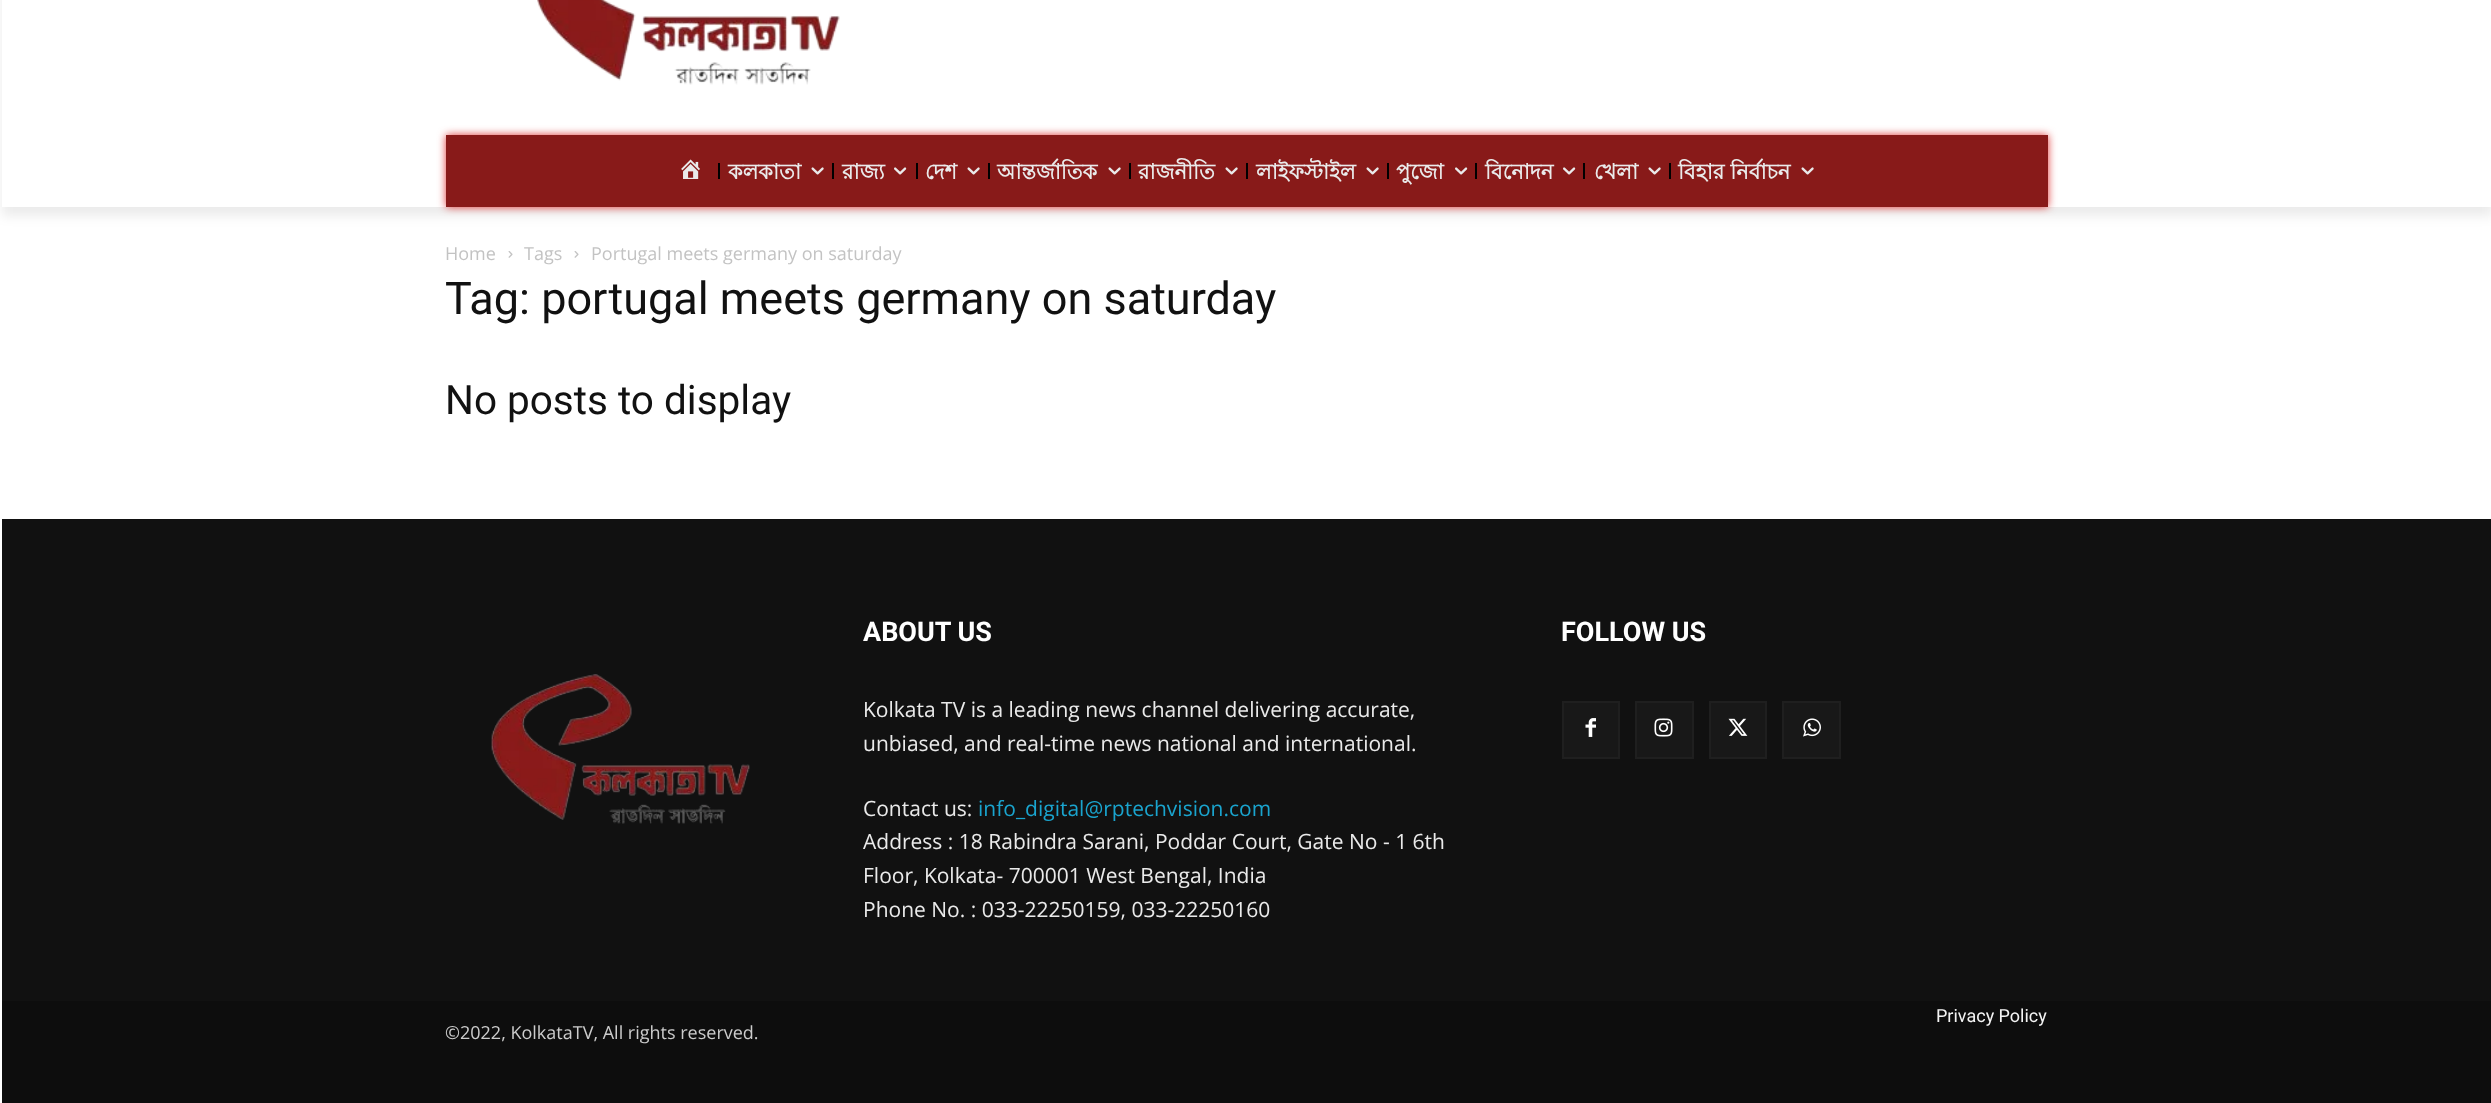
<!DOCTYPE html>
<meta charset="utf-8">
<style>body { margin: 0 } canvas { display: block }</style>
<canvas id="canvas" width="2491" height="1103"></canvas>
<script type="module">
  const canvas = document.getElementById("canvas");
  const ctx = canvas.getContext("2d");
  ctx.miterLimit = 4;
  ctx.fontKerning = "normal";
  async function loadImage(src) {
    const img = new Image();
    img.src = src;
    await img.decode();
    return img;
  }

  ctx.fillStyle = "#ffffff";
  ctx.fillRect(0, 0, 2491, 1103);
  ctx.drawImage(await loadImage("img1.png"), 537, 0, 303, 85);
  ctx.save();
  ctx.beginPath();
  ctx.moveTo(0, 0);
  ctx.lineTo(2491, 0);
  ctx.lineTo(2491, 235);
  ctx.lineTo(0, 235);
  ctx.closePath();
  ctx.moveTo(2, -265);
  ctx.lineTo(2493, -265);
  ctx.lineTo(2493, 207);
  ctx.lineTo(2, 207);
  ctx.closePath();
  ctx.clip("evenodd");
  ctx.fillStyle = "rgba(0, 0, 0, 0.08)";
  ctx.filter = "blur(6px)";
  ctx.beginPath();
  ctx.rect(2, -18, 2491, 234);
  ctx.fill();
  ctx.filter = "none";
  ctx.restore();
  ctx.fillStyle = "#dd3333";
  ctx.filter = "blur(4.5px)";
  ctx.beginPath();
  ctx.rect(446, 135, 1602, 72);
  ctx.fill();
  ctx.filter = "none";
  ctx.fillStyle = "#881a19";
  ctx.fillRect(446, 135, 1602, 72);
  ctx.drawImage(await loadImage("img2.png"), 681, 159, 19, 20);
  ctx.fillStyle = "#000000";
  ctx.fillRect(718, 163, 2, 16);
  ctx.font = "bold 21px Lohit Bengali";
  ctx.fillStyle = "#eaeaea";
  ctx.fillText("কলকাতা", 728, 179);
  ctx.drawImage(await loadImage("img3.png"), 811, 167, 13, 8);
  ctx.fillStyle = "#000000";
  ctx.fillRect(832, 163, 2, 16);
  ctx.fillStyle = "#eaeaea";
  ctx.fillText("রাজ্য", 842, 179);
  ctx.drawImage(await loadImage("img4.png"), 894, 167, 13, 8);
  ctx.fillStyle = "#000000";
  ctx.fillRect(916, 163, 2, 16);
  ctx.fillStyle = "#eaeaea";
  ctx.fillText("দেশ", 925, 179);
  ctx.drawImage(await loadImage("img3.png"), 967, 167, 13, 8);
  ctx.fillStyle = "#000000";
  ctx.fillRect(988, 163, 2, 16);
  ctx.fillStyle = "#eaeaea";
  ctx.fillText("আন্তর্জাতিক", 997, 179);
  ctx.drawImage(await loadImage("img3.png"), 1108, 167, 13, 8);
  ctx.fillStyle = "#000000";
  ctx.fillRect(1129, 163, 2, 16);
  ctx.fillStyle = "#eaeaea";
  ctx.fillText("রাজনীতি", 1138, 179);
  ctx.drawImage(await loadImage("img3.png"), 1225, 167, 13, 8);
  ctx.fillStyle = "#000000";
  ctx.fillRect(1246, 163, 2, 16);
  ctx.fillStyle = "#eaeaea";
  ctx.fillText("লাইফস্টাইল", 1256, 179);
  ctx.drawImage(await loadImage("img3.png"), 1366, 167, 13, 8);
  ctx.fillStyle = "#000000";
  ctx.fillRect(1387, 163, 2, 16);
  ctx.fillStyle = "#eaeaea";
  ctx.fillText("পুজো", 1396, 179);
  ctx.drawImage(await loadImage("img4.png"), 1455, 167, 13, 8);
  ctx.fillStyle = "#000000";
  ctx.fillRect(1475, 163, 2, 16);
  ctx.fillStyle = "#eaeaea";
  ctx.fillText("বিনোদন", 1485, 179);
  ctx.drawImage(await loadImage("img4.png"), 1563, 167, 13, 8);
  ctx.fillStyle = "#000000";
  ctx.fillRect(1583, 163, 2, 16);
  ctx.fillStyle = "#eaeaea";
  ctx.fillText("খেলা", 1594, 179);
  ctx.drawImage(await loadImage("img3.png"), 1648, 167, 13, 8);
  ctx.fillStyle = "#000000";
  ctx.fillRect(1669, 163, 2, 16);
  ctx.fillStyle = "#eaeaea";
  ctx.fillText("বিহার নির্বাচন", 1678, 179);
  ctx.drawImage(await loadImage("img3.png"), 1801, 167, 13, 8);
  ctx.font = "18px Open Sans";
  ctx.fillStyle = "#c3c3c3";
  ctx.fillText("Home", 445, 260);
  ctx.drawImage(await loadImage("img5.png"), 508, 251, 5, 7);
  ctx.fillText("Tags", 524, 260);
  ctx.drawImage(await loadImage("img5.png"), 574, 251, 5, 7);
  ctx.fillText("Portugal meets germany on saturday", 591, 260);
  ctx.font = "45px Roboto";
  ctx.fillStyle = "#111111";
  ctx.fillText("Tag: portugal meets germany on saturday", 445, 314);
  ctx.font = "40.5px Roboto";
  ctx.fillText("No posts to display", 445, 414);
  ctx.fillRect(2, 519, 2489, 482);
  ctx.font = "bold 27px Roboto";
  ctx.fillStyle = "#ffffff";
  ctx.fillText("ABOUT US", 863, 641);
  ctx.font = "21px Open Sans";
  ctx.fillStyle = "#eaeaea";
  ctx.fillText("Kolkata TV is a leading news channel delivering accurate,", 863, 717);
  ctx.fillText("unbiased, and real-time news national and international.", 863, 751);
  ctx.fillText("Contact us:", 863, 816);
  ctx.fillStyle = "#1aa4ce";
  ctx.fillText("info_digital@rptechvision.com", 978, 816);
  ctx.fillStyle = "#eaeaea";
  ctx.fillText("Address : 18 Rabindra Sarani, Poddar Court, Gate No - 1 6th", 863, 849);
  ctx.fillText("Floor, Kolkata- 700001 West Bengal, India", 863, 883);
  ctx.fillText("Phone No. : 033-22250159, 033-22250160", 863, 917);
  ctx.font = "bold 27px Roboto";
  ctx.fillStyle = "#ffffff";
  ctx.fillText("FOLLOW US", 1561, 641);
  ctx.fillStyle = "#181818";
  ctx.beginPath();
  ctx.rect(1563, 702, 56, 56);
  ctx.fill();
  ctx.strokeStyle = "#1f1f1f";
  ctx.lineWidth = 2;
  ctx.stroke();
  ctx.drawImage(await loadImage("img6.png"), 1585, 718, 11, 19);
  ctx.beginPath();
  ctx.rect(1636, 702, 57, 56);
  ctx.fill();
  ctx.stroke();
  ctx.drawImage(await loadImage("img7.png"), 1654, 718, 19, 19);
  ctx.beginPath();
  ctx.rect(1710, 702, 56, 56);
  ctx.fill();
  ctx.stroke();
  ctx.drawImage(await loadImage("img8.png"), 1728, 718, 20, 18);
  ctx.beginPath();
  ctx.rect(1783, 702, 57, 56);
  ctx.fill();
  ctx.stroke();
  ctx.drawImage(await loadImage("img9.png"), 1803, 718, 18, 19);
  ctx.drawImage(await loadImage("img10.png"), 491, 674, 259, 150);
  ctx.fillStyle = "#0d0d0d";
  ctx.fillRect(2, 1001, 2489, 102);
  ctx.font = "18px Roboto";
  ctx.fillStyle = "#f4f4f4";
  ctx.fillText("Privacy Policy", 1936, 1022);
  ctx.font = "18px Open Sans";
  ctx.fillStyle = "#cccccc";
  ctx.fillText("©2022, KolkataTV, All rights reserved.", 445, 1039);
</script>
